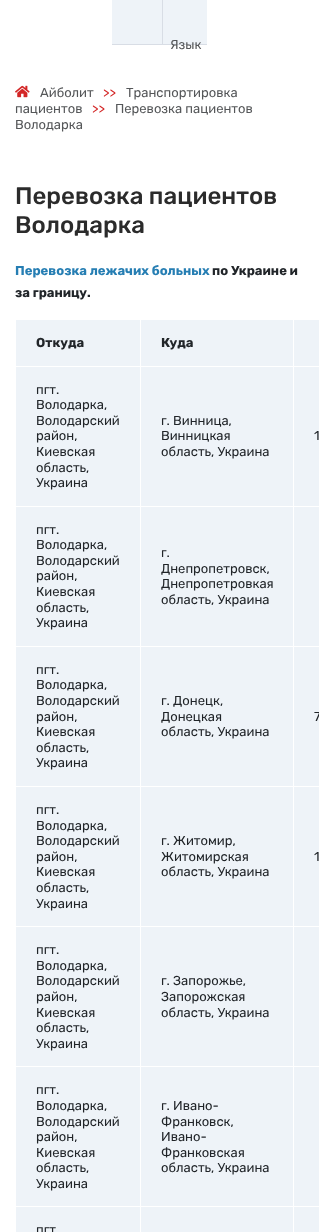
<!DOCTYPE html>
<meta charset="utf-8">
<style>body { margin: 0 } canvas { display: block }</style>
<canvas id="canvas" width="319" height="1232"></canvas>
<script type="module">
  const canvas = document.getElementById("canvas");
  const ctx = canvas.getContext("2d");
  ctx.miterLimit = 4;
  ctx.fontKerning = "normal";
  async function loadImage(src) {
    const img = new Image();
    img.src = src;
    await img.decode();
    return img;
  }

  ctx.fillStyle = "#ffffff";
  ctx.fillRect(0, 0, 319, 1232);
  ctx.fillStyle = "#eef3f8";
  ctx.fillRect(112, 0, 95, 44);
  ctx.fillStyle = "#d8dde5";
  ctx.fillRect(112, 44, 95, 1);
  ctx.fillRect(162, 0, 1, 45);
  ctx.font = "13px Rubik";
  ctx.fillStyle = "#555759";
  ctx.fillText("Язык", 170, 49);
  ctx.drawImage(await loadImage("img1.png"), 15, 85, 15, 13);
  ctx.fillText("Айболит", 40, 97);
  ctx.fillStyle = "#d32626";
  ctx.fillText(">>", 103, 97);
  ctx.fillStyle = "#555759";
  ctx.fillText("Транспортировка", 126, 97);
  ctx.fillText("пациентов", 15, 113);
  ctx.fillStyle = "#d32626";
  ctx.fillText(">>", 92, 113);
  ctx.fillStyle = "#555759";
  ctx.fillText("Перевозка пациентов", 115, 113);
  ctx.fillText("Володарка", 15, 129);
  ctx.font = "500 24px Rubik";
  ctx.fillStyle = "#2b2b2b";
  ctx.fillText("Перевозка пациентов", 15, 204);
  ctx.fillText("Володарка", 15, 233);
  ctx.font = "bold 13px Rubik";
  ctx.fillStyle = "#267eb3";
  ctx.fillText("Перевозка лежачих больных", 15, 275);
  ctx.fillStyle = "#212529";
  ctx.fillText("по Украине и", 212, 275);
  ctx.fillText("за границу.", 15, 297);
  ctx.fillStyle = "#eef3f8";
  ctx.fillRect(16, 320, 303, 912);
  ctx.fillStyle = "#212529";
  ctx.fillText("Откуда", 36, 347);
  ctx.fillStyle = "#ffffff";
  ctx.fillRect(293, 366, 26, 1);
  ctx.fillRect(293, 506, 26, 1);
  ctx.fillRect(293, 646, 26, 1);
  ctx.fillRect(293, 786, 26, 1);
  ctx.fillRect(293, 926, 26, 1);
  ctx.fillRect(293, 1066, 26, 1);
  ctx.fillRect(293, 1206, 26, 1);
  ctx.fillRect(293, 1206, 1, 26);
  ctx.fillRect(140, 1206, 154, 1);
  ctx.fillRect(293, 1066, 1, 141);
  ctx.fillRect(140, 1066, 154, 1);
  ctx.fillRect(293, 926, 1, 141);
  ctx.fillRect(140, 926, 154, 1);
  ctx.fillRect(293, 786, 1, 141);
  ctx.fillRect(140, 786, 154, 1);
  ctx.fillRect(293, 646, 1, 141);
  ctx.fillRect(140, 646, 154, 1);
  ctx.fillRect(293, 506, 1, 141);
  ctx.fillRect(140, 506, 154, 1);
  ctx.fillRect(293, 366, 1, 141);
  ctx.fillRect(140, 366, 154, 1);
  ctx.fillRect(140, 1206, 1, 26);
  ctx.fillRect(15, 1206, 126, 1);
  ctx.fillRect(140, 1066, 1, 141);
  ctx.fillRect(15, 1066, 126, 1);
  ctx.fillRect(140, 926, 1, 141);
  ctx.fillRect(15, 926, 126, 1);
  ctx.fillRect(140, 786, 1, 141);
  ctx.fillRect(15, 786, 126, 1);
  ctx.fillRect(140, 646, 1, 141);
  ctx.fillRect(15, 646, 126, 1);
  ctx.fillRect(140, 506, 1, 141);
  ctx.fillRect(15, 506, 126, 1);
  ctx.fillRect(140, 366, 1, 141);
  ctx.fillRect(15, 366, 126, 1);
  ctx.fillRect(140, 319, 1, 48);
  ctx.fillStyle = "#212529";
  ctx.fillText("Куда", 161, 347);
  ctx.fillStyle = "#ffffff";
  ctx.fillRect(293, 319, 1, 48);
  ctx.font = "13px Rubik";
  ctx.fillStyle = "#212529";
  ctx.fillText("пгт.", 36, 394);
  ctx.fillText("Володарка,", 36, 409);
  ctx.fillText("Володарский", 36, 425);
  ctx.fillText("район,", 36, 440);
  ctx.fillText("Киевская", 36, 456);
  ctx.fillText("область,", 36, 472);
  ctx.fillText("Украина", 36, 487);
  ctx.fillText("г. Винница,", 161, 425);
  ctx.fillText("Винницкая", 161, 440);
  ctx.fillText("область, Украина", 161, 456);
  ctx.fillText("1", 314, 440);
  ctx.fillText("пгт.", 36, 534);
  ctx.fillText("Володарка,", 36, 549);
  ctx.fillText("Володарский", 36, 565);
  ctx.fillText("район,", 36, 580);
  ctx.fillText("Киевская", 36, 596);
  ctx.fillText("область,", 36, 612);
  ctx.fillText("Украина", 36, 627);
  ctx.fillText("г.", 161, 557);
  ctx.fillText("Днепропетровск,", 161, 573);
  ctx.fillText("Днепропетровкая", 161, 588);
  ctx.fillText("область, Украина", 161, 604);
  ctx.fillText("пгт.", 36, 674);
  ctx.fillText("Володарка,", 36, 689);
  ctx.fillText("Володарский", 36, 705);
  ctx.fillText("район,", 36, 721);
  ctx.fillText("Киевская", 36, 736);
  ctx.fillText("область,", 36, 752);
  ctx.fillText("Украина", 36, 767);
  ctx.fillText("г. Донецк,", 161, 705);
  ctx.fillText("Донецкая", 161, 721);
  ctx.fillText("область, Украина", 161, 736);
  ctx.fillText("7", 314, 721);
  ctx.fillText("пгт.", 36, 814);
  ctx.fillText("Володарка,", 36, 830);
  ctx.fillText("Володарский", 36, 845);
  ctx.fillText("район,", 36, 861);
  ctx.fillText("Киевская", 36, 876);
  ctx.fillText("область,", 36, 892);
  ctx.fillText("Украина", 36, 908);
  ctx.fillText("г. Житомир,", 161, 845);
  ctx.fillText("Житомирская", 161, 861);
  ctx.fillText("область, Украина", 161, 876);
  ctx.fillText("1", 314, 861);
  ctx.fillText("пгт.", 36, 954);
  ctx.fillText("Володарка,", 36, 970);
  ctx.fillText("Володарский", 36, 985);
  ctx.fillText("район,", 36, 1001);
  ctx.fillText("Киевская", 36, 1017);
  ctx.fillText("область,", 36, 1032);
  ctx.fillText("Украина", 36, 1048);
  ctx.fillText("г. Запорожье,", 161, 985);
  ctx.fillText("Запорожская", 161, 1001);
  ctx.fillText("область, Украина", 161, 1017);
  ctx.fillText("пгт.", 36, 1094);
  ctx.fillText("Володарка,", 36, 1110);
  ctx.fillText("Володарский", 36, 1126);
  ctx.fillText("район,", 36, 1141);
  ctx.fillText("Киевская", 36, 1157);
  ctx.fillText("область,", 36, 1172);
  ctx.fillText("Украина", 36, 1188);
  ctx.fillText("г. Ивано-", 161, 1110);
  ctx.fillText("Франковск,", 161, 1126);
  ctx.fillText("Ивано-", 161, 1141);
  ctx.fillText("Франковская", 161, 1157);
  ctx.fillText("область, Украина", 161, 1172);
  ctx.fillText("пгт", 36, 1234);
</script>
